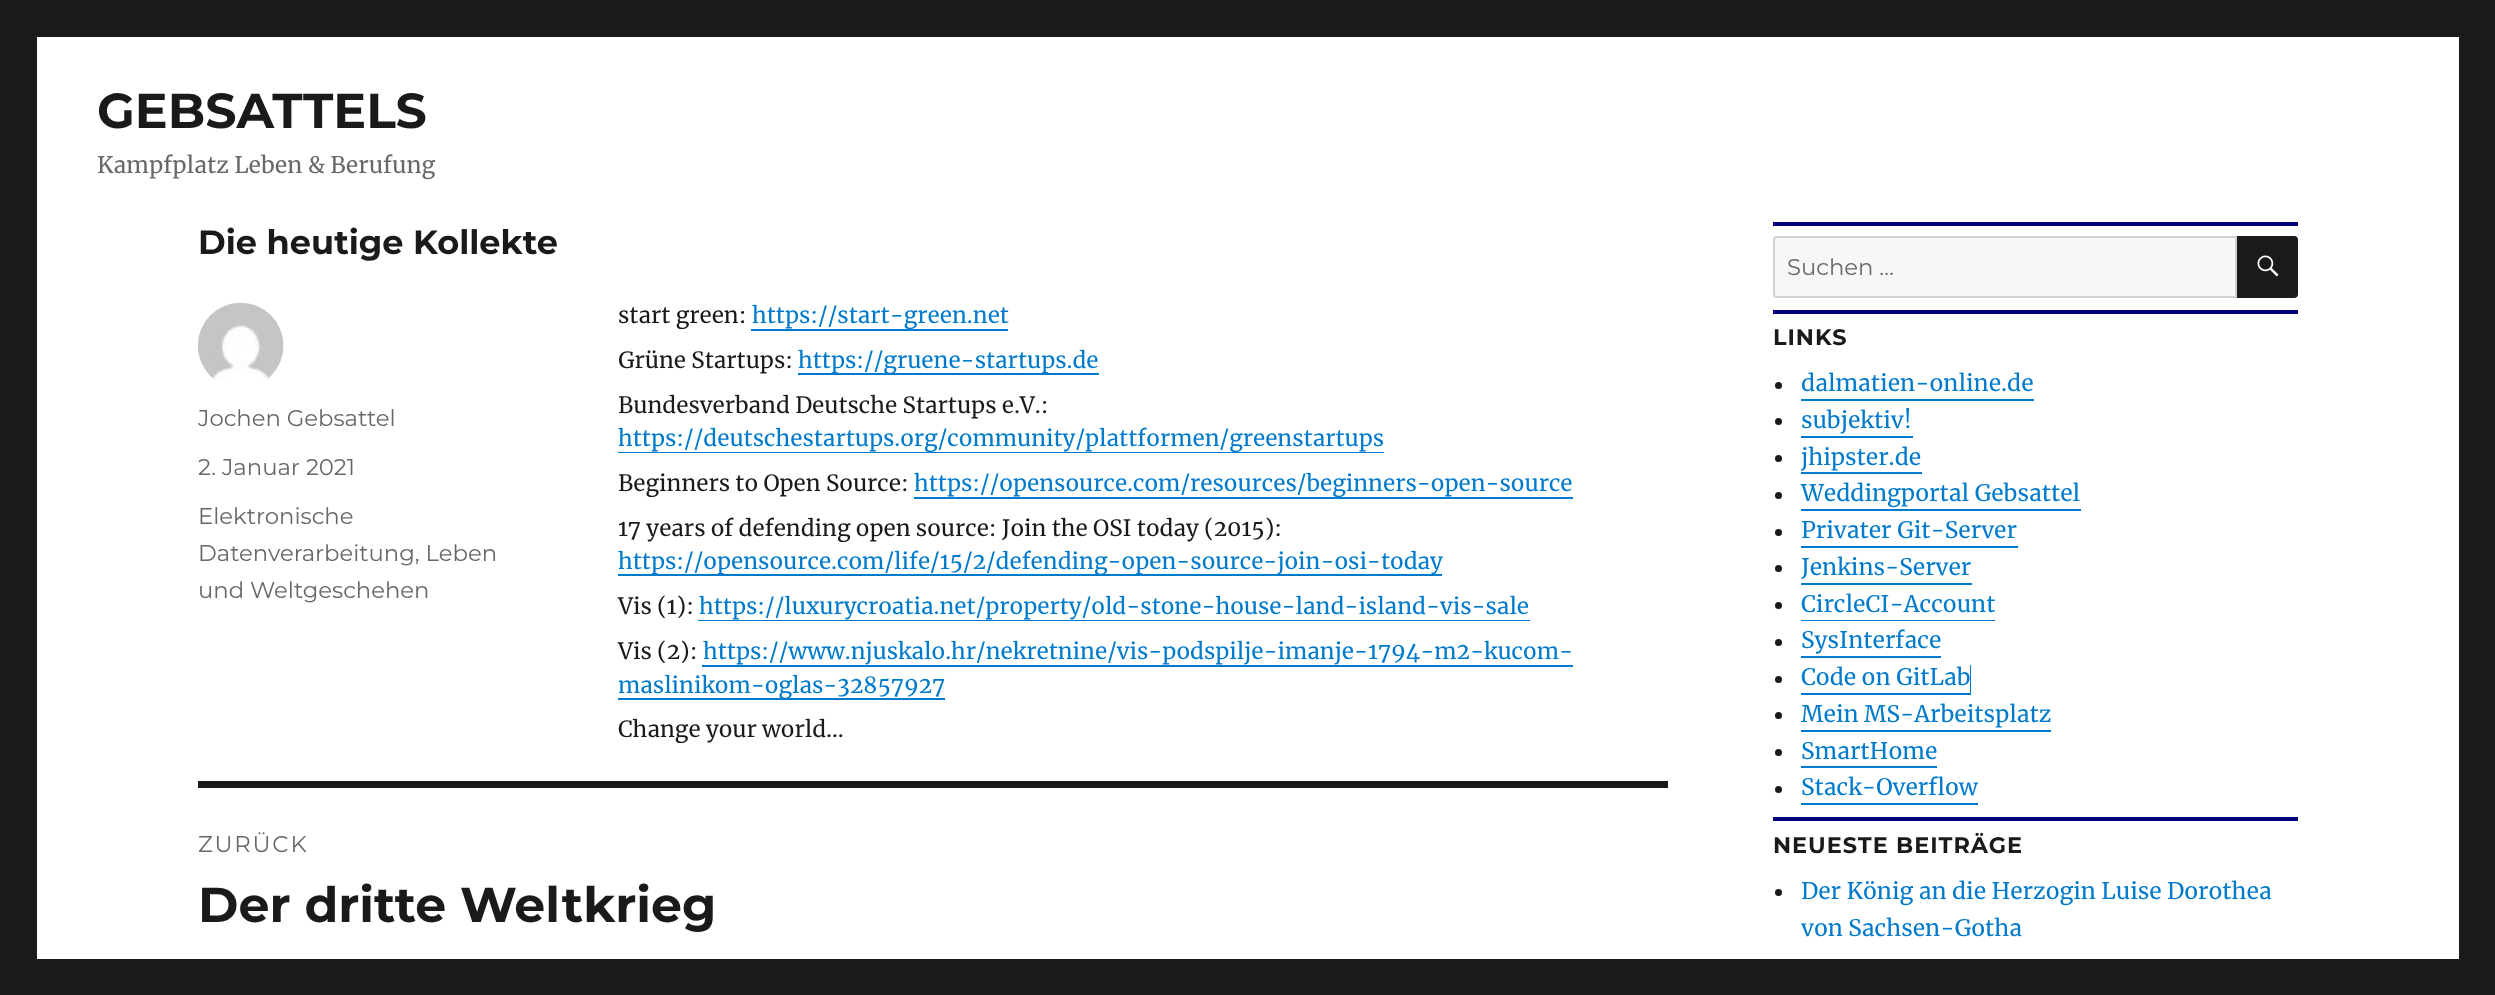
<!DOCTYPE html>
<meta charset="utf-8">
<style>body { margin: 0 } canvas { display: block }</style>
<canvas id="canvas" width="2495" height="995"></canvas>
<script type="module">
  const canvas = document.getElementById("canvas");
  const ctx = canvas.getContext("2d");
  ctx.miterLimit = 4;
  ctx.fontKerning = "normal";
  async function loadImage(src) {
    const img = new Image();
    img.src = src;
    await img.decode();
    return img;
  }

  ctx.fillStyle = "#1a1a1a";
  ctx.fillRect(0, 0, 2495, 995);
  ctx.fillStyle = "#ffffff";
  ctx.fillRect(37, 37, 2422, 922);
  ctx.font = "100 49px 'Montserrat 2'";
  ctx.fillStyle = "#1a1a1a";
  ctx.fillText("GEBSATTELS", 97, 128);
  ctx.font = "22.75px Merriweather";
  ctx.fillStyle = "#686868";
  ctx.fillText("Kampfplatz Leben & Berufung", 97, 173);
  ctx.font = "100 33.6px 'Montserrat 2'";
  ctx.fillStyle = "#1a1a1a";
  ctx.fillText("Die heutige Kollekte", 198, 254);
  ctx.drawImage(await loadImage("img1.png"), 198, 303, 86, 77);
  ctx.font = "100 22.75px Montserrat";
  ctx.fillStyle = "#686868";
  ctx.fillText("Jochen Gebsattel", 198, 426);
  ctx.fillText("2. Januar 2021", 198, 475);
  ctx.fillText("Elektronische", 198, 524);
  ctx.fillText("Datenverarbeitung, Leben", 198, 561);
  ctx.fillText("und Weltgeschehen", 198, 598);
  ctx.font = "22.4px Merriweather";
  ctx.fillStyle = "#1a1a1a";
  ctx.fillText("start green:", 618, 323);
  ctx.fillStyle = "#007acc";
  ctx.fillRect(751, 329, 257, 2);
  ctx.fillText("https://start-green.net", 752, 323);
  ctx.fillStyle = "#1a1a1a";
  ctx.fillText("Grüne Startups:", 618, 368);
  ctx.fillStyle = "#007acc";
  ctx.fillRect(798, 373, 301, 2);
  ctx.fillText("https://gruene-startups.de", 798, 368);
  ctx.fillStyle = "#1a1a1a";
  ctx.fillText("Bundesverband Deutsche Startups e.V.:", 618, 413);
  ctx.fillStyle = "#007acc";
  ctx.fillRect(618, 452, 766, 1);
  ctx.fillText("https://deutschestartups.org/community/plattformen/greenstartups", 618, 446);
  ctx.fillStyle = "#1a1a1a";
  ctx.fillText("Beginners to Open Source:", 618, 491);
  ctx.fillStyle = "#007acc";
  ctx.fillRect(914, 497, 659, 2);
  ctx.fillText("https://opensource.com/resources/beginners-open-source", 914, 491);
  ctx.fillStyle = "#1a1a1a";
  ctx.fillText("17 years of defending open source: Join the OSI today (2015):", 618, 536);
  ctx.fillStyle = "#007acc";
  ctx.fillRect(618, 574, 824, 2);
  ctx.fillText("https://opensource.com/life/15/2/defending-open-source-join-osi-today", 618, 569);
  ctx.fillStyle = "#1a1a1a";
  ctx.fillText("Vis (1):", 618, 614);
  ctx.fillStyle = "#007acc";
  ctx.fillText("https://luxurycroatia.net/property/old-stone-house-land-island-vis-sale", 699, 614);
  ctx.beginPath();
  ctx.moveTo(698, 593);
  ctx.lineTo(698, 621);
  ctx.lineTo(1530, 621);
  ctx.lineTo(1530, 593);
  ctx.lineTo(1530, 620);
  ctx.lineTo(698, 620);
  ctx.closePath();
  ctx.fill();
  ctx.fillStyle = "#1a1a1a";
  ctx.fillText("Vis (2):", 618, 659);
  ctx.fillStyle = "#007acc";
  ctx.fillText("https://www.njuskalo.hr/nekretnine/vis-podspilje-imanje-1794-m2-kucom-", 703, 659);
  ctx.fillRect(702, 665, 871, 2);
  ctx.fillRect(618, 698, 327, 2);
  ctx.fillText("maslinikom-oglas-32857927", 618, 693);
  ctx.fillStyle = "#1a1a1a";
  ctx.fillText("Change your world…", 618, 737);
  ctx.fillRect(198, 781, 1470, 7);
  ctx.letterSpacing = "1.75px";
  ctx.font = "100 22.75px Montserrat";
  ctx.fillStyle = "#686868";
  ctx.fillText("ZURÜCK", 198, 852);
  ctx.letterSpacing = "0px";
  ctx.font = "100 49px 'Montserrat 2'";
  ctx.fillStyle = "#1a1a1a";
  ctx.fillText("Der dritte Weltkrieg", 198, 922);
  ctx.fillStyle = "#000078";
  ctx.fillRect(1773, 222, 525, 4);
  ctx.fillStyle = "#f7f7f7";
  ctx.beginPath();
  ctx.roundRect(1774, 237, 462, 60, [3, 0, 0, 3]);
  ctx.fill();
  ctx.strokeStyle = "#d1d1d1";
  ctx.lineWidth = 2;
  ctx.stroke();
  ctx.font = "100 22.75px Montserrat";
  ctx.fillStyle = "#686868";
  ctx.fillText("Suchen …", 1787, 275);
  ctx.fillStyle = "#1a1a1a";
  ctx.beginPath();
  ctx.roundRect(2237, 236, 61, 62, [0, 4, 4, 0]);
  ctx.fill();
  ctx.drawImage(await loadImage("img2.png"), 2257, 255, 22, 22);
  ctx.fillStyle = "#000078";
  ctx.fillRect(1773, 310, 525, 4);
  ctx.letterSpacing = "1px";
  ctx.font = "100 22.4px 'Montserrat 2'";
  ctx.fillStyle = "#1a1a1a";
  ctx.fillText("LINKS", 1773, 345);
  ctx.beginPath();
  ctx.arc(1778.5, 385.5, 3.5, 0, Math.PI * 2);
  ctx.fill();
  ctx.letterSpacing = "0px";
  ctx.font = "22.75px Merriweather";
  ctx.fillStyle = "#007acc";
  ctx.fillText("dalmatien-online.de", 1801, 391);
  ctx.beginPath();
  ctx.moveTo(1801, 399);
  ctx.lineTo(1801, 401);
  ctx.lineTo(2034, 401);
  ctx.lineTo(2034, 371);
  ctx.lineTo(2034, 399);
  ctx.closePath();
  ctx.fill();
  ctx.fillStyle = "#1a1a1a";
  ctx.beginPath();
  ctx.arc(1778.5, 421.5, 3.5, 0, Math.PI * 2);
  ctx.fill();
  ctx.fillStyle = "#007acc";
  ctx.fillText("subjektiv!", 1801, 428);
  ctx.beginPath();
  ctx.moveTo(1801, 436);
  ctx.lineTo(1801, 438);
  ctx.lineTo(1913, 438);
  ctx.lineTo(1913, 408);
  ctx.lineTo(1913, 436);
  ctx.closePath();
  ctx.fill();
  ctx.fillStyle = "#1a1a1a";
  ctx.beginPath();
  ctx.arc(1778.5, 458.5, 3.5, 0, Math.PI * 2);
  ctx.fill();
  ctx.fillStyle = "#007acc";
  ctx.fillText("jhipster.de", 1801, 465);
  ctx.beginPath();
  ctx.moveTo(1801, 472);
  ctx.lineTo(1801, 474);
  ctx.lineTo(1922, 474);
  ctx.lineTo(1922, 445);
  ctx.lineTo(1922, 472);
  ctx.closePath();
  ctx.fill();
  ctx.fillStyle = "#1a1a1a";
  ctx.beginPath();
  ctx.arc(1778.5, 495.5, 3.5, 0, Math.PI * 2);
  ctx.fill();
  ctx.fillStyle = "#007acc";
  ctx.fillText("Weddingportal Gebsattel", 1801, 501);
  ctx.beginPath();
  ctx.moveTo(1801, 509);
  ctx.lineTo(1801, 511);
  ctx.lineTo(2081, 511);
  ctx.lineTo(2081, 481);
  ctx.lineTo(2081, 509);
  ctx.closePath();
  ctx.fill();
  ctx.fillStyle = "#1a1a1a";
  ctx.beginPath();
  ctx.arc(1778.5, 532.5, 3.5, 0, Math.PI * 2);
  ctx.fill();
  ctx.fillStyle = "#007acc";
  ctx.fillText("Privater Git-Server", 1801, 538);
  ctx.beginPath();
  ctx.moveTo(1801, 546);
  ctx.lineTo(1801, 548);
  ctx.lineTo(2018, 548);
  ctx.lineTo(2018, 518);
  ctx.lineTo(2018, 546);
  ctx.closePath();
  ctx.fill();
  ctx.fillStyle = "#1a1a1a";
  ctx.beginPath();
  ctx.arc(1778.5, 568.5, 3.5, 0, Math.PI * 2);
  ctx.fill();
  ctx.fillStyle = "#007acc";
  ctx.fillText("Jenkins-Server", 1801, 575);
  ctx.fillRect(1801, 583, 171, 2);
  ctx.fillStyle = "#1a1a1a";
  ctx.beginPath();
  ctx.arc(1778.5, 605.5, 3.5, 0, Math.PI * 2);
  ctx.fill();
  ctx.fillStyle = "#007acc";
  ctx.fillText("CircleCI-Account", 1801, 612);
  ctx.fillRect(1801, 620, 194, 1);
  ctx.fillStyle = "#1a1a1a";
  ctx.beginPath();
  ctx.arc(1778.5, 642.5, 3.5, 0, Math.PI * 2);
  ctx.fill();
  ctx.fillStyle = "#007acc";
  ctx.fillText("SysInterface", 1801, 648);
  ctx.beginPath();
  ctx.moveTo(1801, 656);
  ctx.lineTo(1801, 658);
  ctx.lineTo(1941, 658);
  ctx.lineTo(1941, 628);
  ctx.lineTo(1941, 656);
  ctx.closePath();
  ctx.fill();
  ctx.fillStyle = "#1a1a1a";
  ctx.beginPath();
  ctx.arc(1778.5, 679.5, 3.5, 0, Math.PI * 2);
  ctx.fill();
  ctx.fillStyle = "#007acc";
  ctx.beginPath();
  ctx.moveTo(1801, 693);
  ctx.lineTo(1801, 695);
  ctx.lineTo(1971, 695);
  ctx.lineTo(1971, 665);
  ctx.lineTo(1970, 665);
  ctx.lineTo(1970, 693);
  ctx.closePath();
  ctx.fill();
  ctx.fillText("Code on GitLab", 1801, 685);
  ctx.fillStyle = "#1a1a1a";
  ctx.beginPath();
  ctx.arc(1778.5, 715.5, 3.5, 0, Math.PI * 2);
  ctx.fill();
  ctx.fillStyle = "#007acc";
  ctx.fillText("Mein MS-Arbeitsplatz", 1801, 722);
  ctx.fillRect(1801, 730, 250, 2);
  ctx.fillStyle = "#1a1a1a";
  ctx.beginPath();
  ctx.arc(1778.5, 752.5, 3.5, 0, Math.PI * 2);
  ctx.fill();
  ctx.fillStyle = "#007acc";
  ctx.fillText("SmartHome", 1801, 759);
  ctx.fillRect(1801, 766, 136, 2);
  ctx.fillStyle = "#1a1a1a";
  ctx.beginPath();
  ctx.arc(1778.5, 789.5, 3.5, 0, Math.PI * 2);
  ctx.fill();
  ctx.fillStyle = "#007acc";
  ctx.fillText("Stack-Overflow", 1801, 795);
  ctx.beginPath();
  ctx.moveTo(1801, 803);
  ctx.lineTo(1801, 805);
  ctx.lineTo(1978, 805);
  ctx.lineTo(1978, 775);
  ctx.lineTo(1978, 803);
  ctx.closePath();
  ctx.fill();
  ctx.fillStyle = "#000078";
  ctx.fillRect(1773, 817, 525, 4);
  ctx.letterSpacing = "1px";
  ctx.font = "100 22.4px 'Montserrat 2'";
  ctx.fillStyle = "#1a1a1a";
  ctx.fillText("NEUESTE BEITRÄGE", 1773, 853);
  ctx.beginPath();
  ctx.arc(1778.5, 892.5, 3.5, 0, Math.PI * 2);
  ctx.fill();
  ctx.letterSpacing = "0px";
  ctx.font = "22.75px Merriweather";
  ctx.fillStyle = "#007acc";
  ctx.fillText("Der König an die Herzogin Luise Dorothea", 1801, 899);
  ctx.fillText("von Sachsen-Gotha", 1801, 936);
</script>
